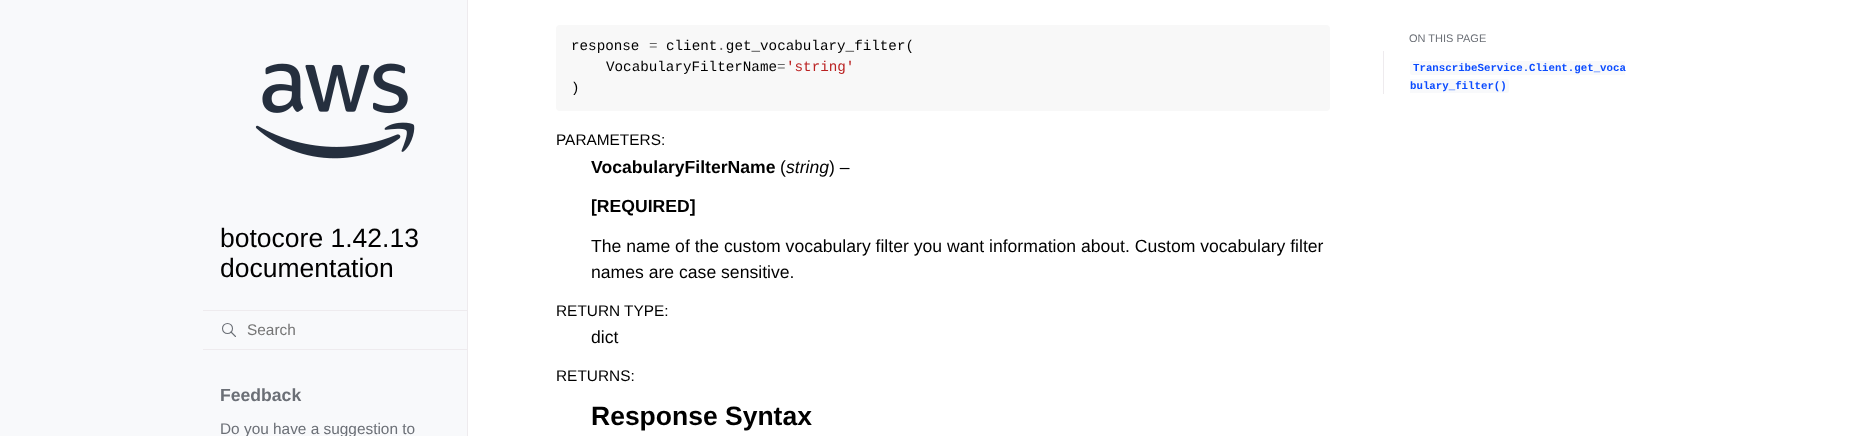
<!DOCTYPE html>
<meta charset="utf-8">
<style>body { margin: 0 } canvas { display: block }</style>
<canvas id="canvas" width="1851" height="436"></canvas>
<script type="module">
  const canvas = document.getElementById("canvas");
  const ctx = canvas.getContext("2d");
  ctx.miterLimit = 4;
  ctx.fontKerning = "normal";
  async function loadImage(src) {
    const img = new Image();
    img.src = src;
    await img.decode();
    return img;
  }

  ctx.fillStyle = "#ffffff";
  ctx.fillRect(0, 0, 1851, 436);
  ctx.fillStyle = "#f8f9fb";
  ctx.fillRect(0, 0, 467, 436);
  ctx.fillStyle = "#eeebee";
  ctx.fillRect(467, 0, 1, 436);
  ctx.drawImage(await loadImage("img1.png"), 255, 63, 160, 96);
  ctx.font = "26.5px Liberation Sans";
  ctx.fillStyle = "#000000";
  ctx.fillText("botocore 1.42.13", 220, 247);
  ctx.fillText("documentation", 220, 277);
  ctx.beginPath();
  ctx.arc(227.5, 328.5, 5, 0, Math.PI * 2);
  ctx.strokeStyle = "#6b6f76";
  ctx.lineWidth = 1.1;
  ctx.stroke();
  ctx.beginPath();
  ctx.moveTo(235.5, 336.5);
  ctx.lineTo(231, 332);
  ctx.lineCap = "round";
  ctx.lineJoin = "round";
  ctx.stroke();
  ctx.fillStyle = "#eeebee";
  ctx.fillRect(203, 310, 264, 1);
  ctx.fillRect(203, 349, 264, 1);
  ctx.font = "15.4px Liberation Sans";
  ctx.fillStyle = "#757575";
  ctx.fillText("Search", 247, 335);
  ctx.font = "bold 17.6px Liberation Sans";
  ctx.fillStyle = "#6b6f76";
  ctx.fillText("Feedback", 220, 401);
  ctx.font = "15.4px Liberation Sans";
  ctx.fillText("Do you have a suggestion to", 220, 434);
  ctx.fillStyle = "#f8f8f8";
  ctx.beginPath();
  ctx.roundRect(556, 25, 774, 86, 4);
  ctx.fill();
  ctx.font = "14.25px Liberation Mono";
  ctx.fillStyle = "#000000";
  ctx.fillText("response", 571, 50);
  ctx.fillStyle = "#666666";
  ctx.fillText("=", 649, 50);
  ctx.fillStyle = "#000000";
  ctx.fillText("client get_vocabulary_filter(", 666, 50);
  ctx.fillStyle = "#666666";
  ctx.fillText(".", 717, 50);
  ctx.fillStyle = "#000000";
  ctx.fillText("VocabularyFilterName", 606, 71);
  ctx.fillStyle = "#666666";
  ctx.fillText("=", 777, 71);
  ctx.fillStyle = "#ba2121";
  ctx.fillText("'string'", 786, 71);
  ctx.fillStyle = "#000000";
  ctx.fillText(")", 571, 92);
  ctx.font = "15.4px Liberation Sans";
  ctx.fillText("PARAMETERS:", 556, 145);
  ctx.font = "bold 17.6px Liberation Sans";
  ctx.fillText("VocabularyFilterName", 591, 173);
  ctx.font = "17.6px Liberation Sans";
  ctx.fillText("(", 780, 173);
  ctx.font = "italic 17.6px Liberation Sans";
  ctx.fillText("string", 786, 173);
  ctx.font = "17.6px Liberation Sans";
  ctx.fillText(") –", 829, 173);
  ctx.font = "bold 17.6px Liberation Sans";
  ctx.fillText("[REQUIRED]", 591, 212);
  ctx.font = "17.6px Liberation Sans";
  ctx.fillText("The name of the custom vocabulary filter you want information about. Custom vocabulary filter", 591, 252);
  ctx.fillText("names are case sensitive.", 591, 278);
  ctx.font = "15.4px Liberation Sans";
  ctx.fillText("RETURN TYPE:", 556, 316);
  ctx.font = "17.6px Liberation Sans";
  ctx.fillText("dict", 591, 343);
  ctx.font = "15.4px Liberation Sans";
  ctx.fillText("RETURNS:", 556, 381);
  ctx.font = "bold 26.5px Liberation Sans";
  ctx.fillText("Response Syntax", 591, 425);
  ctx.font = "11px Liberation Sans";
  ctx.fillStyle = "#6b6f76";
  ctx.fillText("ON THIS PAGE", 1409, 42);
  ctx.fillStyle = "#eeebee";
  ctx.fillRect(1383, 51, 1, 43);
  ctx.fillStyle = "#f8f9fb";
  ctx.beginPath();
  ctx.roundRect(1410, 61, 215, 14, [2, 0, 0, 2]);
  ctx.fill();
  ctx.font = "bold 10.75px Liberation Mono";
  ctx.fillStyle = "#0a4bff";
  ctx.fillText("TranscribeService.Client.get_voca", 1413, 71);
  ctx.fillStyle = "#f8f9fb";
  ctx.beginPath();
  ctx.roundRect(1410, 79, 99, 14, [0, 2, 2, 0]);
  ctx.fill();
  ctx.fillStyle = "#0a4bff";
  ctx.fillText("bulary_filter()", 1410, 89);
</script>
